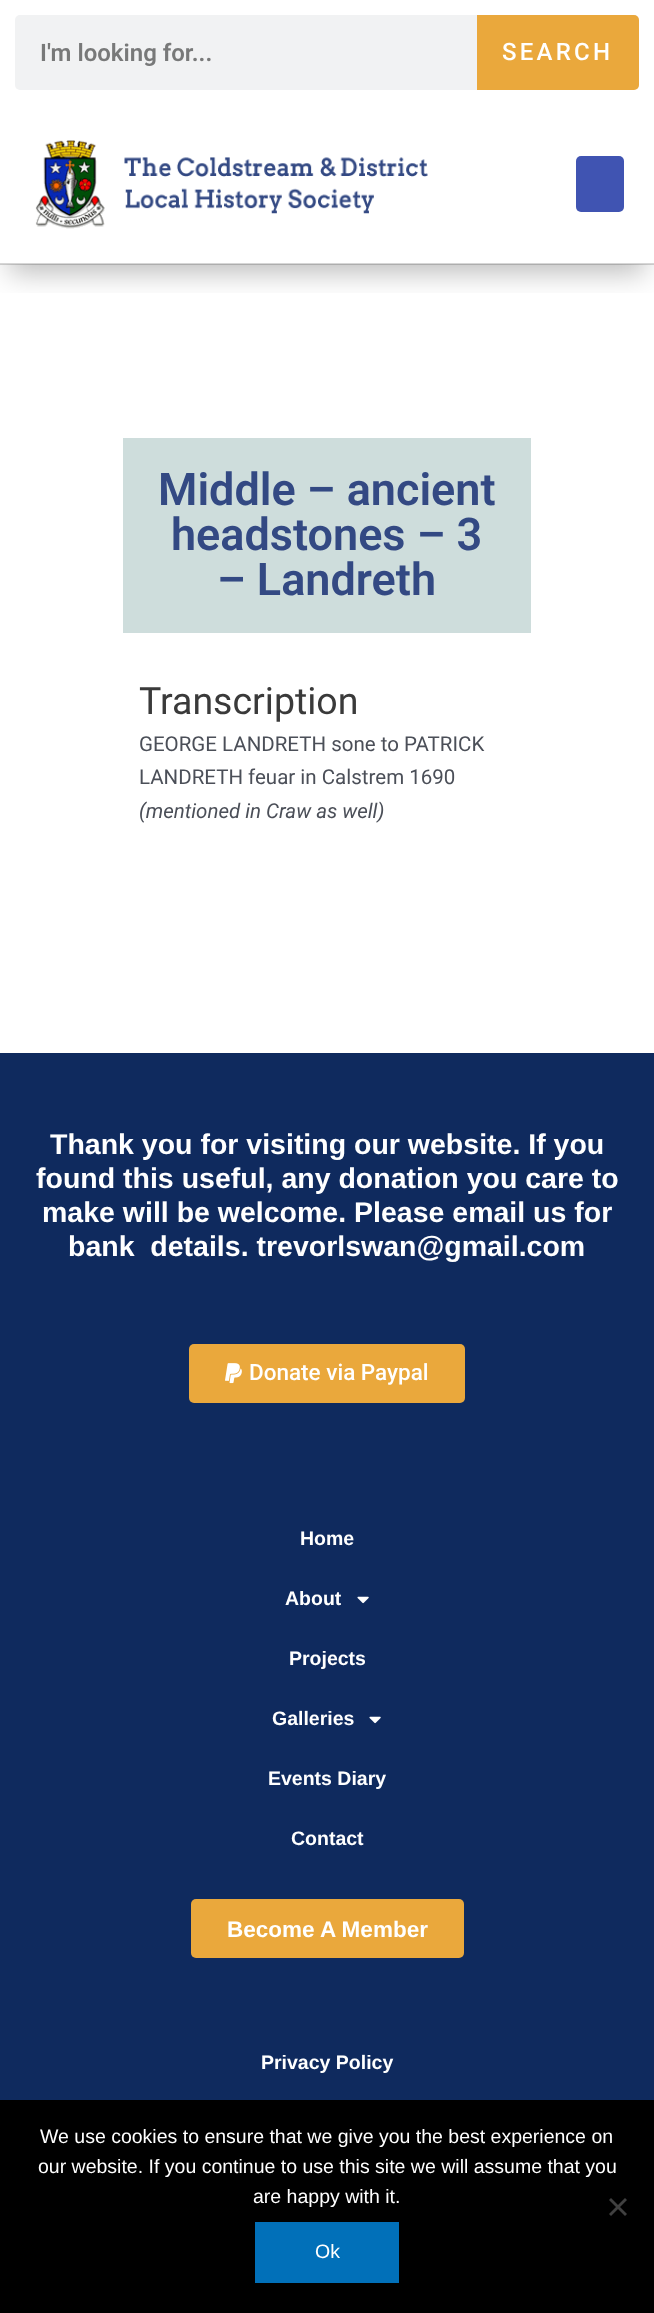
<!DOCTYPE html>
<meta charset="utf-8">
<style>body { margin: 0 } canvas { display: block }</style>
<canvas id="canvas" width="654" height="2313"></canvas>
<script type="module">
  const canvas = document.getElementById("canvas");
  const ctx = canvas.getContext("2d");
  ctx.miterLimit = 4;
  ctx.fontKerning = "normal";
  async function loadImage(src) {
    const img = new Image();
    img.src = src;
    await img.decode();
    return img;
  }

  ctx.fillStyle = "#ffffff";
  ctx.fillRect(0, 0, 654, 2313);
  ctx.save();
  ctx.beginPath();
  ctx.rect(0, 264, 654, 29);
  ctx.clip();
  ctx.fillStyle = "rgba(0, 0, 0, 0.26)";
  ctx.filter = "blur(14px)";
  ctx.beginPath();
  ctx.rect(9, 27, 636, 246);
  ctx.fill();
  ctx.filter = "none";
  ctx.restore();
  ctx.fillStyle = "rgba(0, 0, 0, 0.16)";
  ctx.fillRect(0, 263, 654, 2);
  ctx.fillStyle = "#f1f2f3";
  ctx.beginPath();
  ctx.roundRect(15, 15, 624, 75, 5);
  ctx.fill();
  ctx.font = "600 24px Roboto";
  ctx.fillStyle = "#787979";
  ctx.fillText("I'm looking for...", 40, 61);
  ctx.fillStyle = "#eaa83c";
  ctx.beginPath();
  ctx.roundRect(477, 15, 162, 75, [0, 5, 5, 0]);
  ctx.fill();
  ctx.letterSpacing = "3.25px";
  ctx.font = "500 24px Roboto";
  ctx.fillStyle = "#ffffff";
  ctx.fillText("SEARCH", 502, 60);
  ctx.drawImage(await loadImage("img1.png"), 35, 140, 393, 89);
  ctx.fillStyle = "#4054b2";
  ctx.beginPath();
  ctx.roundRect(576, 156, 48, 56, 5);
  ctx.fill();
  ctx.fillStyle = "#cedddc";
  ctx.fillRect(123, 438, 408, 195);
  ctx.letterSpacing = "0px";
  ctx.font = "600 45px Roboto";
  ctx.fillStyle = "#334983";
  ctx.fillText("Middle – ancient", 158, 505);
  ctx.fillText("headstones – 3", 171, 550);
  ctx.fillText("– Landreth", 217, 595);
  ctx.font = "37.5px Roboto";
  ctx.fillStyle = "#3a3a3a";
  ctx.fillText("Transcription", 139, 714);
  ctx.font = "20.5px Roboto";
  ctx.fillStyle = "#4b4f58";
  ctx.fillText("GEORGE LANDRETH sone to PATRICK", 139, 751);
  ctx.fillText("LANDRETH feuar in Calstrem 1690", 139, 784);
  ctx.font = "italic 20.5px Roboto";
  ctx.fillText("(mentioned in Craw as well)", 139, 818);
  ctx.fillStyle = "#0f2a5e";
  ctx.fillRect(0, 1053, 654, 1047);
  ctx.font = "bold 28.5px Liberation Sans";
  ctx.fillStyle = "#ffffff";
  ctx.fillText("Thank you for visiting our website. If you", 50, 1154);
  ctx.fillText("found this useful, any donation you care to", 36, 1188);
  ctx.fillText("make will be welcome. Please email us for", 42, 1222);
  ctx.fillText("bank  details. trevorlswan@gmail.com", 68, 1256);
  ctx.fillStyle = "#eaa83c";
  ctx.beginPath();
  ctx.roundRect(189, 1344, 276, 59, 5);
  ctx.fill();
  ctx.drawImage(await loadImage("img2.png"), 225, 1363, 17, 21);
  ctx.font = "500 22.5px Roboto";
  ctx.fillStyle = "#ffffff";
  ctx.fillText("Donate via Paypal", 249, 1380);
  ctx.font = "bold 19.5px Liberation Sans";
  ctx.fillText("Home", 300, 1545);
  ctx.fillText("About", 285, 1605);
  ctx.drawImage(await loadImage("img3.png"), 357, 1596, 12, 8);
  ctx.fillText("Projects", 289, 1665);
  ctx.fillText("Galleries", 272, 1725);
  ctx.drawImage(await loadImage("img3.png"), 369, 1716, 12, 8);
  ctx.fillText("Events Diary", 268, 1785);
  ctx.fillText("Contact", 291, 1845);
  ctx.fillStyle = "#eaa83c";
  ctx.beginPath();
  ctx.roundRect(191, 1899, 273, 59, 5);
  ctx.fill();
  ctx.font = "bold 22.5px Liberation Sans";
  ctx.fillStyle = "#ffffff";
  ctx.fillText("Become A Member", 227, 1937);
  ctx.font = "bold 19.5px Liberation Sans";
  ctx.fillText("Privacy Policy", 261, 2069);
  ctx.fillStyle = "#000000";
  ctx.fillRect(0, 2100, 654, 213);
  ctx.font = "19.5px Liberation Sans";
  ctx.fillStyle = "#ffffff";
  ctx.fillText("We use cookies to ensure that we give you the best experience on", 40, 2143);
  ctx.fillText("our website. If you continue to use this site we will assume that you", 38, 2173);
  ctx.fillText("are happy with it.", 253, 2203);
  ctx.fillStyle = "#404040";
  ctx.beginPath();
  ctx.moveTo(625, 2198);
  ctx.lineTo(627, 2200);
  ctx.lineTo(611, 2216);
  ctx.lineTo(609, 2214);
  ctx.closePath();
  ctx.fill();
  ctx.beginPath();
  ctx.moveTo(609, 2200);
  ctx.lineTo(611, 2198);
  ctx.lineTo(627, 2214);
  ctx.lineTo(625, 2216);
  ctx.closePath();
  ctx.fill();
  ctx.fillStyle = "#0170b9";
  ctx.fillRect(255, 2222, 144, 61);
  ctx.fillStyle = "#ffffff";
  ctx.fillText("Ok", 315, 2258);
</script>
